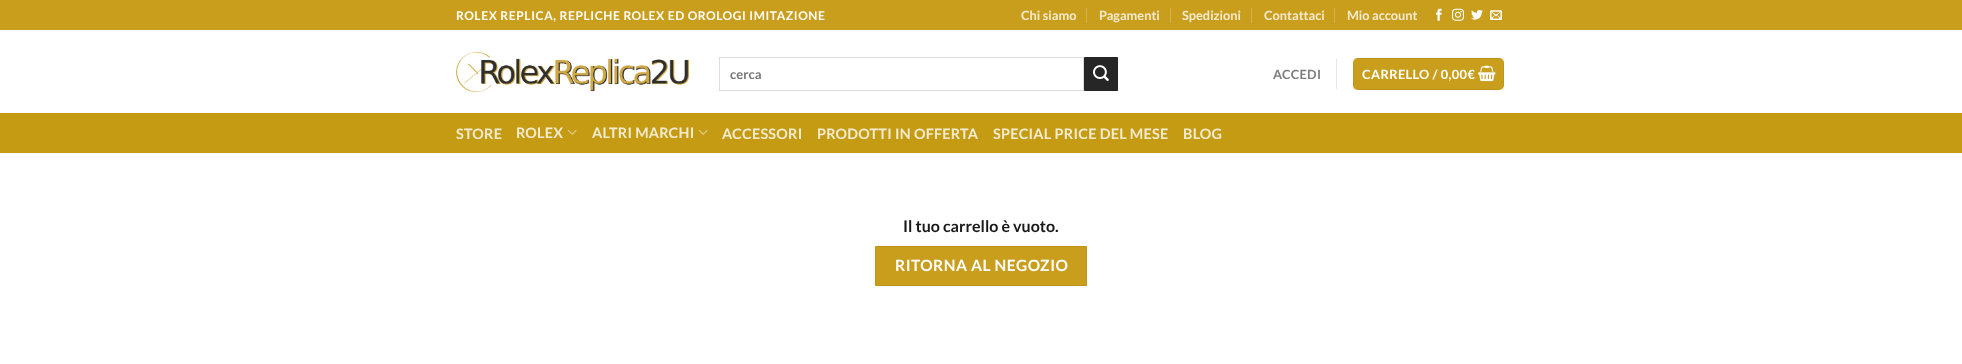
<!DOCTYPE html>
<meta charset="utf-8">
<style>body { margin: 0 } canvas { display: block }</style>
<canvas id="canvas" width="1962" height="364"></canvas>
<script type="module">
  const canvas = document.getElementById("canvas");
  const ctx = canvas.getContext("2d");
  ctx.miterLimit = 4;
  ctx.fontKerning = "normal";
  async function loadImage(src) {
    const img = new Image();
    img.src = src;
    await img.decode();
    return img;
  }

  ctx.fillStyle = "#ffffff";
  ctx.fillRect(0, 0, 1962, 364);
  ctx.fillStyle = "#c99e1c";
  ctx.fillRect(0, 0, 1962, 30);
  ctx.letterSpacing = "0.6px";
  ctx.font = "bold 12px Lato";
  ctx.fillStyle = "#ffffff";
  ctx.fillText("ROLEX REPLICA, REPLICHE ROLEX ED OROLOGI IMITAZIONE", 456, 20);
  ctx.letterSpacing = "0px";
  ctx.font = "bold 12.75px Lato";
  ctx.fillStyle = "#f3ebd0";
  ctx.fillText("Chi siamo", 1021, 20);
  ctx.fillStyle = "#d4b149";
  ctx.fillRect(1086, 8, 1, 15);
  ctx.fillStyle = "#f3ebd0";
  ctx.fillText("Pagamenti", 1099, 20);
  ctx.fillStyle = "#d4b149";
  ctx.fillRect(1170, 8, 1, 15);
  ctx.fillStyle = "#f3ebd0";
  ctx.fillText("Spedizioni", 1182, 20);
  ctx.fillStyle = "#d4b149";
  ctx.fillRect(1251, 8, 1, 15);
  ctx.fillStyle = "#f3ebd0";
  ctx.fillText("Contattaci", 1264, 20);
  ctx.fillStyle = "#d4b149";
  ctx.fillRect(1334, 8, 1, 15);
  ctx.fillStyle = "#f3ebd0";
  ctx.fillText("Mio account", 1347, 20);
  ctx.drawImage(await loadImage("img1.png"), 1436, 8, 6, 13);
  ctx.drawImage(await loadImage("img2.png"), 1452, 8, 12, 13);
  ctx.drawImage(await loadImage("img3.png"), 1471, 9, 12, 11);
  ctx.drawImage(await loadImage("img4.png"), 1490, 10, 12, 10);
  ctx.drawImage(await loadImage("img5.png"), 456, 52, 233, 40);
  ctx.strokeStyle = "#dddddd";
  ctx.strokeRect(719.5, 57.5, 364, 33);
  ctx.font = "bold 13px Lato";
  ctx.fillStyle = "#757575";
  ctx.fillText("cerca", 730, 79);
  ctx.fillStyle = "#262626";
  ctx.beginPath();
  ctx.rect(1084.5, 57.5, 33, 33);
  ctx.fill();
  ctx.strokeStyle = "#242424";
  ctx.stroke();
  ctx.drawImage(await loadImage("img6.png"), 1093, 65, 16, 16);
  ctx.letterSpacing = "0.25px";
  ctx.font = "bold 12.75px Lato";
  ctx.fillStyle = "#7d7d7d";
  ctx.fillText("ACCEDI", 1273, 79);
  ctx.fillStyle = "#e6e6e6";
  ctx.fillRect(1336, 59, 1, 30);
  ctx.fillStyle = "#c99e1c";
  ctx.beginPath();
  ctx.roundRect(1353, 58, 151, 32, 5);
  ctx.fill();
  ctx.strokeStyle = "rgba(0, 0, 0, 0.05)";
  ctx.strokeRect(1353.5, 58.5, 150, 31);
  ctx.letterSpacing = "0.4px";
  ctx.fillStyle = "#ffffff";
  ctx.fillText("CARRELLO / 0,00€", 1362, 79);
  ctx.drawImage(await loadImage("img7.png"), 1478, 65, 18, 17);
  ctx.fillStyle = "#c49b13";
  ctx.fillRect(0, 113, 1962, 40);
  ctx.letterSpacing = "0.25px";
  ctx.font = "bold 14.4px Lato";
  ctx.fillStyle = "#f3ebd0";
  ctx.fillText("STORE", 456, 139);
  ctx.fillText("ROLEX", 516, 138);
  ctx.drawImage(await loadImage("img8.png"), 567, 129, 10, 6);
  ctx.fillText("ALTRI MARCHI", 592, 138);
  ctx.drawImage(await loadImage("img8.png"), 698, 129, 10, 6);
  ctx.fillText("ACCESSORI", 722, 139);
  ctx.fillText("PRODOTTI IN OFFERTA", 817, 139);
  ctx.fillText("SPECIAL PRICE DEL MESE", 993, 139);
  ctx.fillText("BLOG", 1183, 139);
  ctx.letterSpacing = "0px";
  ctx.font = "bold 16px Lato";
  ctx.fillStyle = "#191919";
  ctx.fillText("Il tuo carrello è vuoto.", 903, 232);
  ctx.fillStyle = "#c99e1c";
  ctx.beginPath();
  ctx.rect(875.5, 246.5, 211, 39);
  ctx.fill();
  ctx.strokeStyle = "#bf961b";
  ctx.stroke();
  ctx.letterSpacing = "0.5px";
  ctx.font = "bold 15.5px Lato";
  ctx.fillStyle = "#ffffff";
  ctx.fillText("RITORNA AL NEGOZIO", 895, 271);
</script>
